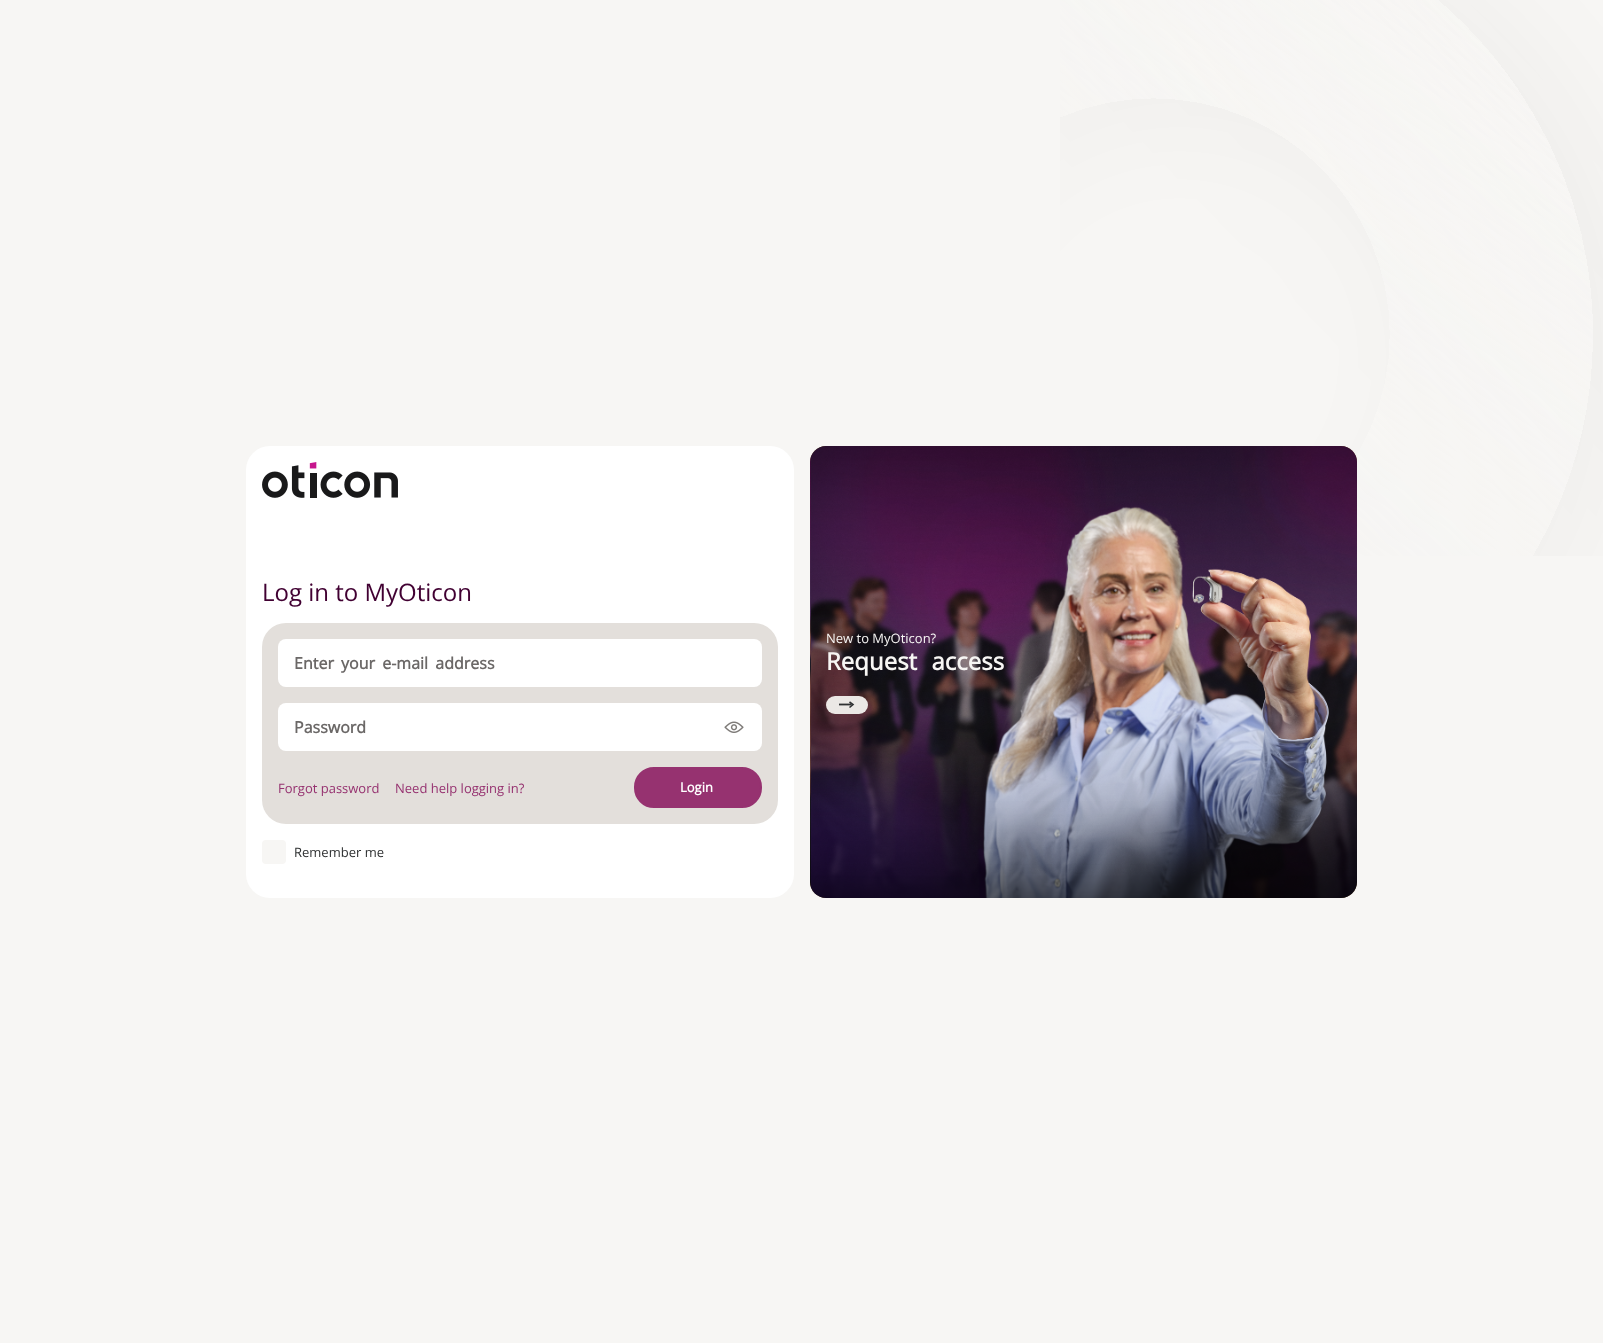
<!DOCTYPE html>
<meta charset="utf-8">
<style>body { margin: 0 } canvas { display: block }</style>
<canvas id="canvas" width="1603" height="1343"></canvas>
<script type="module">
  const canvas = document.getElementById("canvas");
  const ctx = canvas.getContext("2d");
  ctx.miterLimit = 4;
  ctx.fontKerning = "normal";
  async function loadImage(src) {
    const img = new Image();
    img.src = src;
    await img.decode();
    return img;
  }

  ctx.fillStyle = "#f7f6f4";
  ctx.fillRect(0, 0, 1603, 1343);
  ctx.drawImage(await loadImage("img1.png"), 1060, 0, 543, 556);
  ctx.fillStyle = "#ffffff";
  ctx.beginPath();
  ctx.roundRect(246, 446, 548, 452, 24);
  ctx.fill();
  ctx.drawImage(await loadImage("img2.png"), 262, 462, 136, 36);
  ctx.font = "24px Open Sans";
  ctx.fillStyle = "#410032";
  ctx.fillText("Log in to MyOticon", 262, 601);
  ctx.fillStyle = "#e3dfdb";
  ctx.beginPath();
  ctx.roundRect(262, 623, 516, 201, 24);
  ctx.fill();
  ctx.fillStyle = "#ffffff";
  ctx.beginPath();
  ctx.roundRect(278, 639, 484, 48, 8);
  ctx.fill();
  ctx.wordSpacing = "3px";
  ctx.font = "bold 16px Open Sans";
  ctx.fillStyle = "#6b6867";
  ctx.fillText("Enter your e-mail address", 294, 669);
  ctx.fillStyle = "#ffffff";
  ctx.beginPath();
  ctx.roundRect(278, 703, 484, 48, 8);
  ctx.fill();
  ctx.wordSpacing = "0px";
  ctx.fillStyle = "#6b6867";
  ctx.fillText("Password", 294, 733);
  ctx.drawImage(await loadImage("img3.png"), 724, 721, 20, 12);
  ctx.font = "13px Open Sans";
  ctx.fillStyle = "#963270";
  ctx.fillText("Forgot password", 278, 793);
  ctx.fillText("Need help logging in?", 395, 793);
  ctx.beginPath();
  ctx.roundRect(635, 768, 126, 39, 19);
  ctx.fill();
  ctx.strokeStyle = "#963270";
  ctx.lineWidth = 2;
  ctx.stroke();
  ctx.font = "bold 13px Open Sans";
  ctx.fillStyle = "#ffffff";
  ctx.fillText("Login", 680, 792);
  ctx.fillStyle = "#f7f6f4";
  ctx.beginPath();
  ctx.roundRect(262, 840, 24, 24, 4);
  ctx.fill();
  ctx.font = "13px Open Sans";
  ctx.fillStyle = "#2f3132";
  ctx.fillText("Remember me", 294, 857);
  ctx.fillStyle = "#927748";
  ctx.beginPath();
  ctx.roundRect(810, 446, 547, 452, 16);
  ctx.fill();
  ctx.drawImage(await loadImage("img4.png"), 810, 446, 547, 452);
  ctx.fillStyle = "#f7f6f4";
  ctx.fillText("New to MyOticon?", 826, 643);
  ctx.wordSpacing = "8px";
  ctx.font = "bold 24px Open Sans";
  ctx.fillText("Request access", 826, 670);
  ctx.fillStyle = "#ebe8e5";
  ctx.beginPath();
  ctx.roundRect(826, 696, 42, 18, 9);
  ctx.fill();
  ctx.beginPath();
  ctx.moveTo(851.5, 704.5);
  ctx.lineTo(839, 704.5);
  ctx.strokeStyle = "#2f3132";
  ctx.lineWidth = 1.8;
  ctx.stroke();
  ctx.beginPath();
  ctx.moveTo(849.5, 707.5);
  ctx.lineTo(853, 704.5);
  ctx.lineTo(849.5, 702);
  ctx.lineWidth = 1.6;
  ctx.stroke();
</script>
